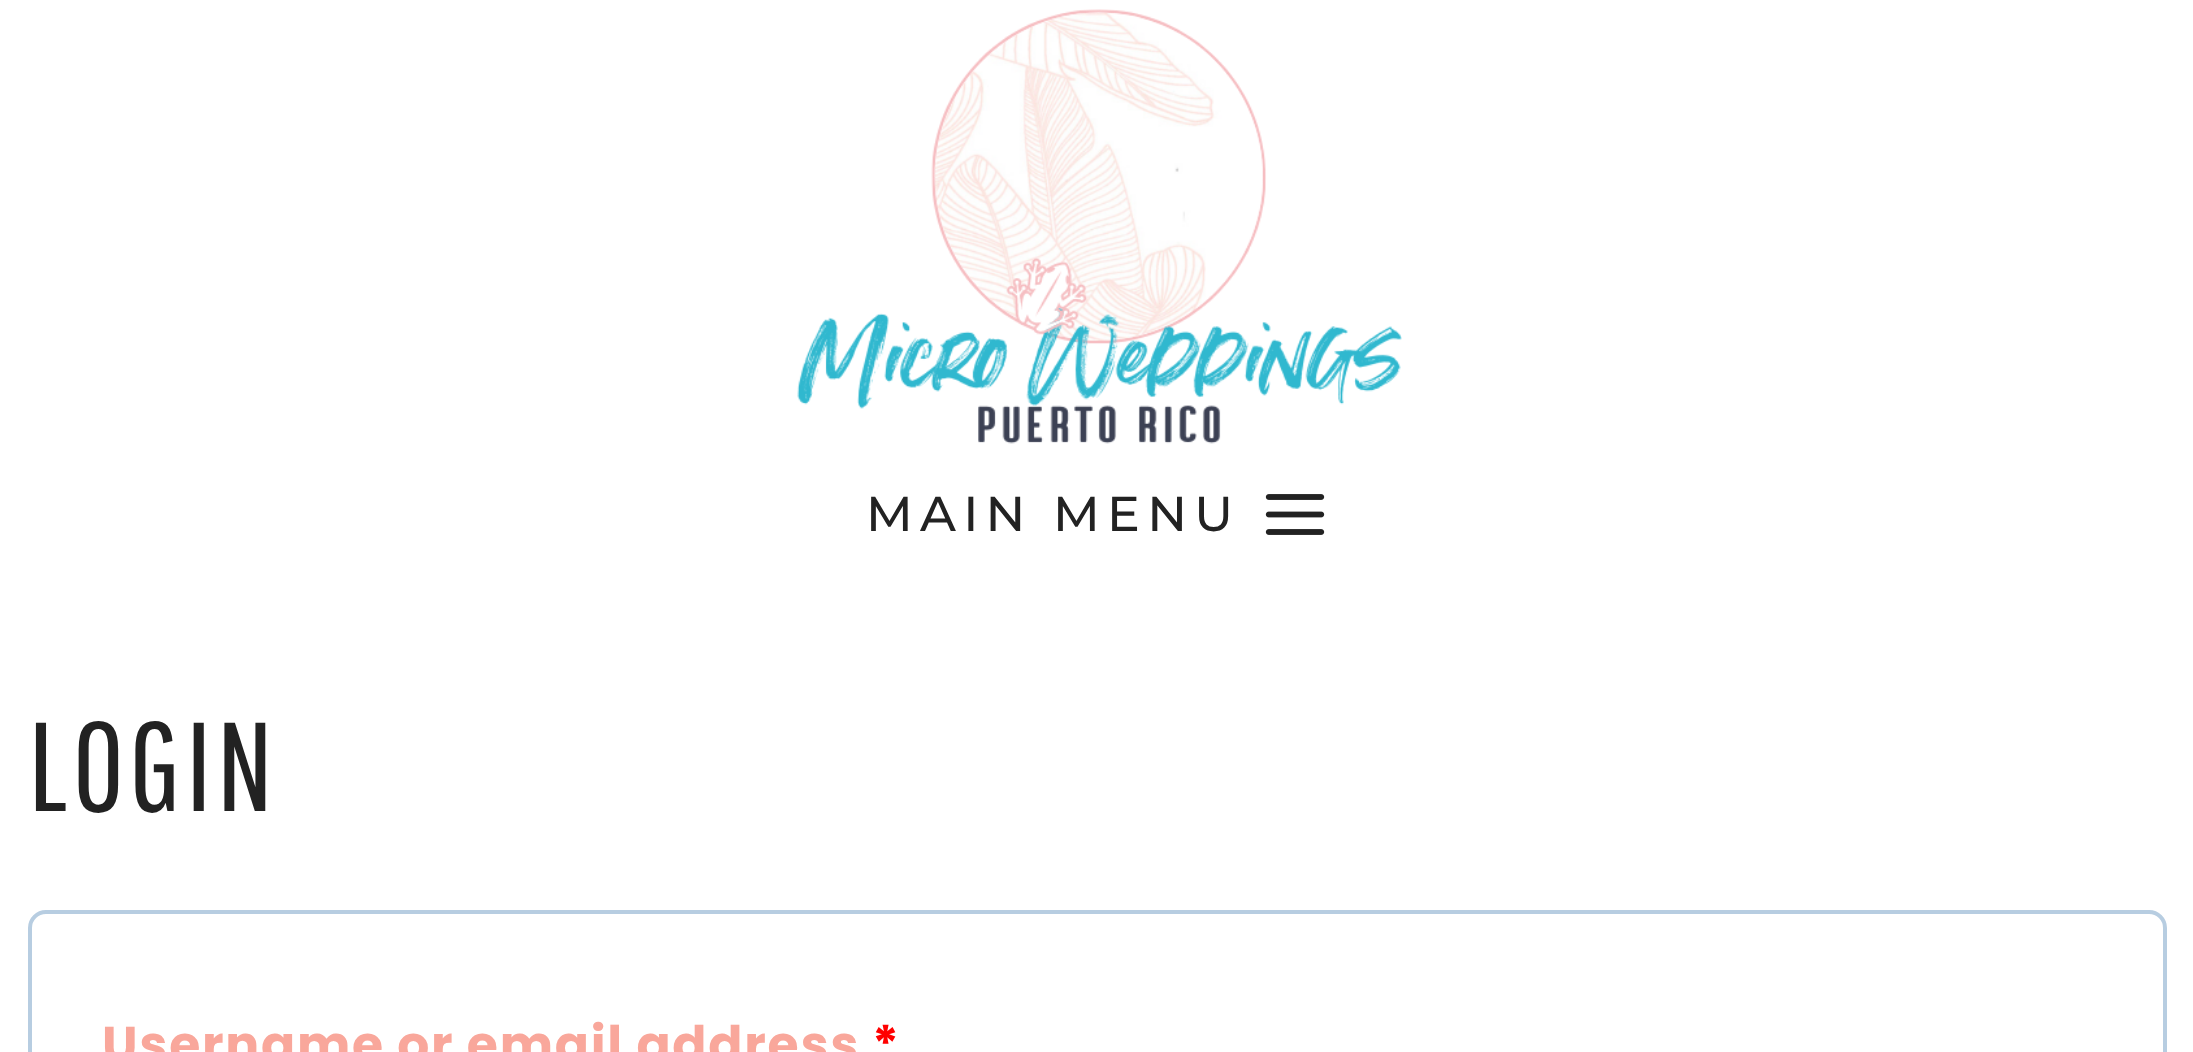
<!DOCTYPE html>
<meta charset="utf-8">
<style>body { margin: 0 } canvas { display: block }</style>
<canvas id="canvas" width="2193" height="1052"></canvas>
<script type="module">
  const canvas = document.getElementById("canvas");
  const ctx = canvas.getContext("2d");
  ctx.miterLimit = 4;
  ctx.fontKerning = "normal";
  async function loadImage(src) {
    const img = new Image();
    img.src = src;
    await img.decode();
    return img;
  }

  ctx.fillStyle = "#ffffff";
  ctx.fillRect(0, 0, 2193, 1052);
  ctx.drawImage(await loadImage("img1.png"), 797, 9, 605, 435);
  ctx.letterSpacing = "7.25px";
  ctx.font = "100 49px Montserrat";
  ctx.fillStyle = "#222222";
  ctx.fillText("MAIN MENU", 866, 531);
  ctx.drawImage(await loadImage("img2.png"), 1265, 494, 60, 41);
  ctx.letterSpacing = "5px";
  ctx.font = "126px Pathway Gothic One";
  ctx.fillText("LOGIN", 28, 811);
  ctx.beginPath();
  ctx.roundRect(30, 912, 2135, 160, 16);
  ctx.strokeStyle = "#b7cde1";
  ctx.lineWidth = 4;
  ctx.stroke();
  ctx.letterSpacing = "1.75px";
  ctx.font = "bold 50.4px Poppins";
  ctx.fillStyle = "#f9a79b";
  ctx.fillText("Username or email address", 102, 1062);
  ctx.fillStyle = "#ff0000";
  ctx.fillText("*", 872, 1062);
</script>
